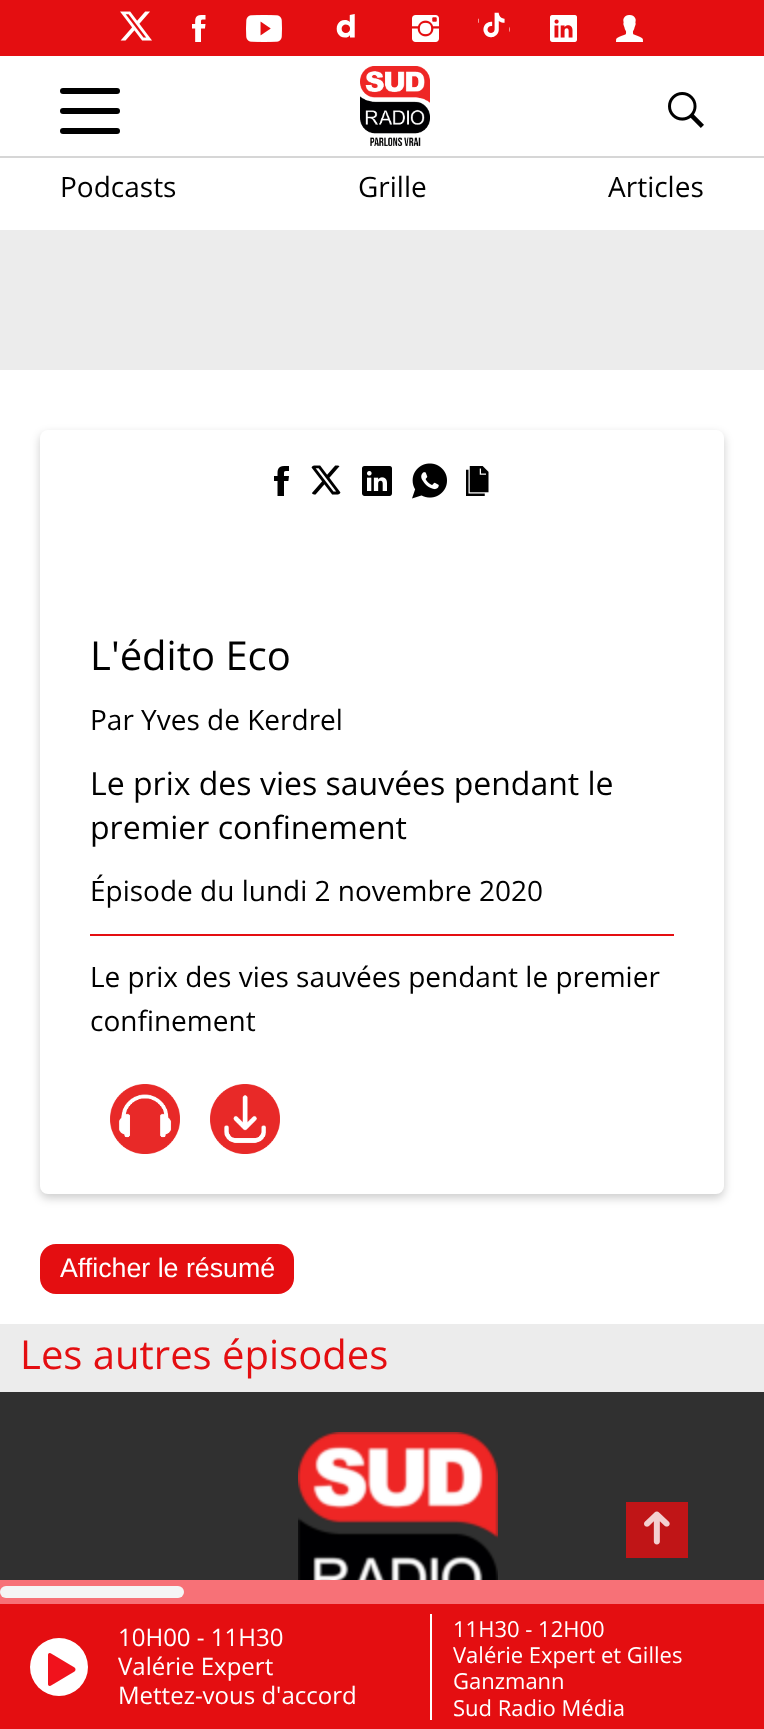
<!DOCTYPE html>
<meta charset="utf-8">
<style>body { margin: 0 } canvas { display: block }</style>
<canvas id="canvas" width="764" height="1729"></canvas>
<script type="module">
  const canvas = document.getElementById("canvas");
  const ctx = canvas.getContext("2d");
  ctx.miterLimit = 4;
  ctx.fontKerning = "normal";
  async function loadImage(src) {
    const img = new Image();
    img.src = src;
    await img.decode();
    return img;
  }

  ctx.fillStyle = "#ececec";
  ctx.fillRect(0, 0, 764, 1729);
  ctx.fillStyle = "#e40e11";
  ctx.fillRect(0, 0, 764, 56);
  ctx.drawImage(await loadImage("img1.png"), 120, 11, 32, 30);
  ctx.drawImage(await loadImage("img2.png"), 192, 15, 14, 27);
  ctx.drawImage(await loadImage("img3.png"), 246, 15, 36, 27);
  ctx.drawImage(await loadImage("img4.png"), 336, 14, 19, 24);
  ctx.drawImage(await loadImage("img5.png"), 412, 15, 27, 27);
  ctx.drawImage(await loadImage("img6.png"), 478, 12, 32, 26);
  ctx.drawImage(await loadImage("img7.png"), 550, 15, 27, 27);
  ctx.drawImage(await loadImage("img8.png"), 616, 15, 27, 27);
  ctx.fillStyle = "#ffffff";
  ctx.fillRect(0, 56, 764, 100);
  ctx.fillStyle = "#000000";
  ctx.beginPath();
  ctx.roundRect(60, 88, 60, 6, 3);
  ctx.fill();
  ctx.beginPath();
  ctx.roundRect(60, 108, 60, 6, 3);
  ctx.fill();
  ctx.beginPath();
  ctx.roundRect(60, 128, 60, 6, 3);
  ctx.fill();
  ctx.drawImage(await loadImage("img9.png"), 360, 66, 70, 80);
  ctx.drawImage(await loadImage("img10.png"), 668, 92, 36, 36);
  ctx.fillStyle = "#ffffff";
  ctx.fillRect(0, 158, 764, 72);
  ctx.fillStyle = "#d6d6d6";
  ctx.fillRect(0, 156, 764, 2);
  ctx.font = "28px Open Sans";
  ctx.fillStyle = "#000000";
  ctx.fillText("Podcasts", 60, 197);
  ctx.fillText("Grille", 358, 197);
  ctx.fillText("Articles", 608, 197);
  ctx.fillStyle = "#ffffff";
  ctx.fillRect(0, 370, 764, 954);
  ctx.fillStyle = "rgba(0, 0, 0, 0.2)";
  ctx.filter = "blur(5px)";
  ctx.beginPath();
  ctx.roundRect(40, 434, 684, 764, 8);
  ctx.fill();
  ctx.filter = "none";
  ctx.fillStyle = "#ffffff";
  ctx.beginPath();
  ctx.roundRect(40, 430, 684, 764, 8);
  ctx.fill();
  ctx.drawImage(await loadImage("img11.png"), 274, 466, 15, 30);
  ctx.drawImage(await loadImage("img12.png"), 311, 465, 30, 30);
  ctx.drawImage(await loadImage("img13.png"), 362, 466, 30, 30);
  ctx.drawImage(await loadImage("img14.png"), 412, 463, 35, 36);
  ctx.drawImage(await loadImage("img15.png"), 466, 466, 23, 30);
  ctx.font = "40px Open Sans";
  ctx.fillStyle = "#000000";
  ctx.fillText("L'édito Eco", 90, 670);
  ctx.font = "28px Open Sans";
  ctx.fillText("Par Yves de Kerdrel", 90, 730);
  ctx.font = "32px Open Sans";
  ctx.fillText("Le prix des vies sauvées pendant le", 90, 795);
  ctx.fillText("premier confinement", 90, 839);
  ctx.font = "28px Open Sans";
  ctx.fillText("Épisode du lundi 2 novembre 2020", 90, 901);
  ctx.fillStyle = "#e40e11";
  ctx.fillRect(90, 934, 584, 2);
  ctx.fillStyle = "#000000";
  ctx.fillText("Le prix des vies sauvées pendant le premier", 90, 987);
  ctx.fillText("confinement", 90, 1031);
  ctx.drawImage(await loadImage("img16.png"), 110, 1084, 70, 70);
  ctx.drawImage(await loadImage("img17.png"), 210, 1084, 70, 70);
  ctx.fillStyle = "#e40e11";
  ctx.beginPath();
  ctx.roundRect(40, 1244, 254, 50, 16);
  ctx.fill();
  ctx.font = "26.75px Liberation Sans";
  ctx.fillStyle = "#ffffff";
  ctx.fillText("Afficher le résumé", 60, 1277);
  ctx.font = "40px Open Sans";
  ctx.fillStyle = "#e40e11";
  ctx.fillText("Les autres épisodes", 20, 1369);
  ctx.fillStyle = "#303030";
  ctx.fillRect(0, 1392, 764, 188);
  ctx.drawImage(await loadImage("img18.png"), 298, 1432, 200, 148);
  ctx.fillStyle = "#c01517";
  ctx.fillRect(626, 1502, 62, 56);
  ctx.drawImage(await loadImage("img19.png"), 644, 1511, 26, 34);
  ctx.fillStyle = "#e40e11";
  ctx.fillRect(0, 1604, 764, 125);
  ctx.fillStyle = "#f77177";
  ctx.fillRect(0, 1580, 764, 24);
  ctx.fillStyle = "#f5f5f5";
  ctx.beginPath();
  ctx.roundRect(0, 1586, 184, 12, 6);
  ctx.fill();
  ctx.fillStyle = "#ffffff";
  ctx.beginPath();
  ctx.arc(59, 1667, 29, 0, Math.PI * 2);
  ctx.fill();
  ctx.drawImage(await loadImage("img20.png"), 48, 1653, 28, 33);
  ctx.font = "24px Open Sans";
  ctx.fillText("10H00 - 11H30", 118, 1646);
  ctx.fillText("Valérie Expert", 118, 1675);
  ctx.fillText("Mettez-vous d'accord", 118, 1704);
  ctx.fillRect(430, 1614, 2, 106);
  ctx.font = "22px Open Sans";
  ctx.fillText("11H30 - 12H00", 453, 1637);
  ctx.fillText("Valérie Expert et Gilles", 453, 1663);
  ctx.fillText("Ganzmann", 453, 1689);
  ctx.fillText("Sud Radio Média", 453, 1716);
</script>
